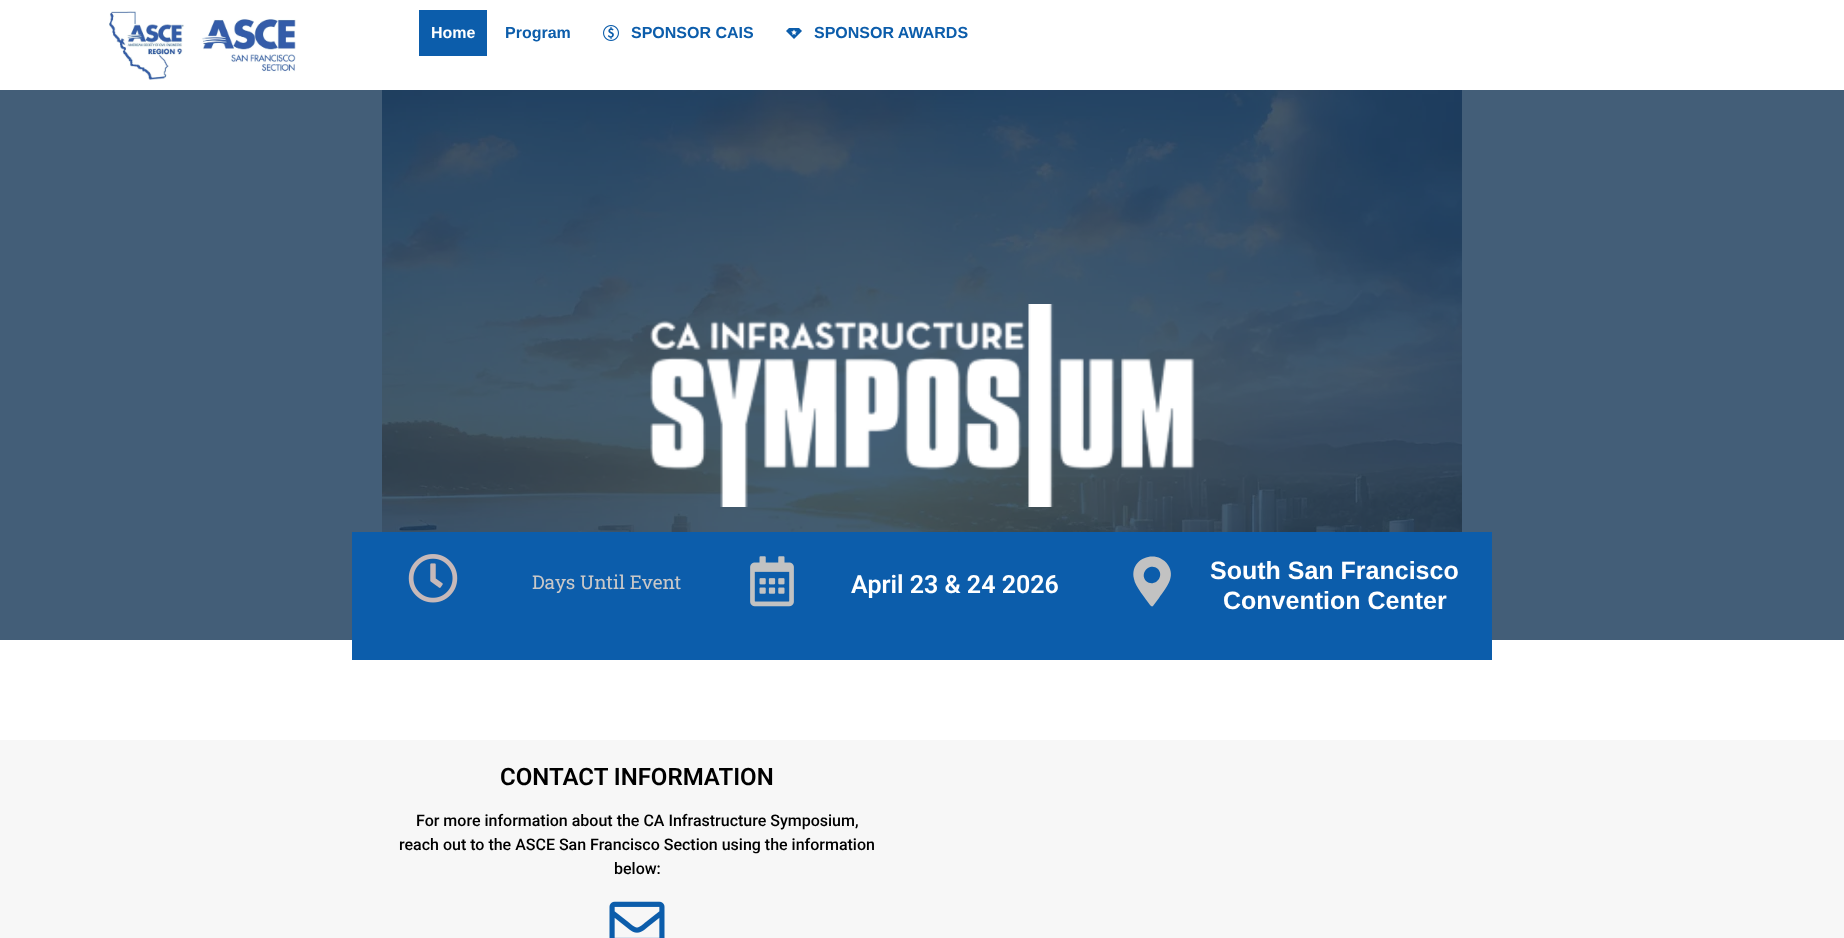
<!DOCTYPE html>
<meta charset="utf-8">
<style>body { margin: 0 } canvas { display: block }</style>
<canvas id="canvas" width="1844" height="938"></canvas>
<script type="module">
  const canvas = document.getElementById("canvas");
  const ctx = canvas.getContext("2d");
  ctx.miterLimit = 4;
  ctx.fontKerning = "normal";
  async function loadImage(src) {
    const img = new Image();
    img.src = src;
    await img.decode();
    return img;
  }

  ctx.fillStyle = "#ffffff";
  ctx.fillRect(0, 0, 1844, 938);
  ctx.fillStyle = "#435e78";
  ctx.fillRect(0, 90, 1844, 550);
  ctx.drawImage(await loadImage("img1.png"), 109, 11, 187, 69);
  ctx.fillStyle = "#0c5dab";
  ctx.fillRect(419, 10, 68, 46);
  ctx.font = "bold 16px Liberation Sans";
  ctx.fillStyle = "#ffffff";
  ctx.fillText("Home", 431, 38);
  ctx.fillStyle = "#0c5dab";
  ctx.fillText("Program", 505, 38);
  ctx.drawImage(await loadImage("img2.png"), 603, 25, 16, 16);
  ctx.fillText("SPONSOR CAIS", 631, 38);
  ctx.drawImage(await loadImage("img3.png"), 786, 28, 16, 11);
  ctx.fillText("SPONSOR AWARDS", 814, 38);
  ctx.drawImage(await loadImage("img4.png"), 382, 90, 1080, 442);
  ctx.drawImage(await loadImage("img5.png"), 650, 304, 545, 203);
  ctx.fillRect(352, 532, 1140, 128);
  ctx.drawImage(await loadImage("img6.png"), 408, 554, 50, 49);
  ctx.font = "19px Roboto Slab";
  ctx.fillStyle = "#c9c8c8";
  ctx.fillText("Days Until Event", 532, 589);
  ctx.drawImage(await loadImage("img7.png"), 750, 556, 44, 51);
  ctx.font = "600 25px Roboto";
  ctx.fillStyle = "#ffffff";
  ctx.fillText("April 23 & 24 2026", 851, 593);
  ctx.fillStyle = "#c2c2c2";
  ctx.beginPath();
  ctx.moveTo(1150, 605);
  ctx.bezierCurveTo(1146, 599, 1135, 586, 1134, 579);
  ctx.bezierCurveTo(1129, 559, 1156, 548, 1168, 565);
  ctx.bezierCurveTo(1176, 577, 1166, 588, 1159, 598);
  ctx.lineTo(1153, 606);
  ctx.bezierCurveTo(1152, 607, 1151, 606, 1150, 605);
  ctx.closePath();
  ctx.moveTo(1146, 581);
  ctx.bezierCurveTo(1154, 588, 1165, 577, 1158, 569);
  ctx.bezierCurveTo(1150, 562, 1139, 573, 1146, 581);
  ctx.closePath();
  ctx.fill();
  ctx.font = "bold 25px Liberation Sans";
  ctx.fillStyle = "#ffffff";
  ctx.fillText("South San Francisco", 1210, 579);
  ctx.fillText("Convention Center", 1223, 609);
  ctx.fillStyle = "#f7f7f7";
  ctx.fillRect(0, 740, 1844, 198);
  ctx.font = "600 24px Roboto";
  ctx.fillStyle = "#000000";
  ctx.fillText("CONTACT INFORMATION", 500, 785);
  ctx.font = "500 16px Roboto";
  ctx.fillText("For more information about the CA Infrastructure Symposium,", 416, 826);
  ctx.fillText("reach out to the ASCE San Francisco Section using the information", 399, 850);
  ctx.fillText("below:", 614, 874);
  ctx.drawImage(await loadImage("img8.png"), 609, 901, 56, 37);
</script>
